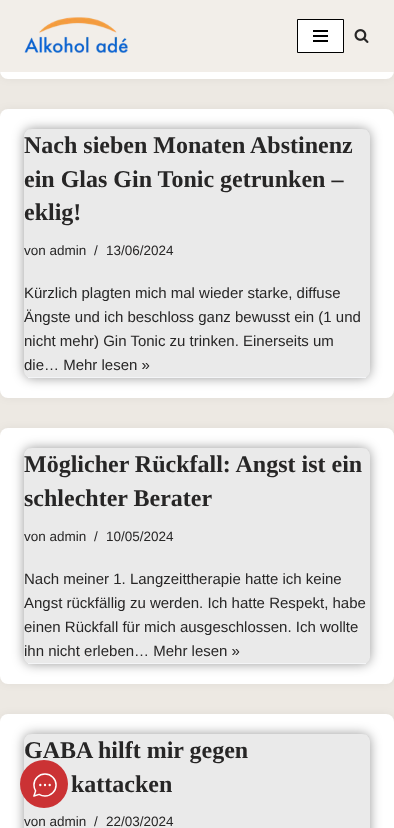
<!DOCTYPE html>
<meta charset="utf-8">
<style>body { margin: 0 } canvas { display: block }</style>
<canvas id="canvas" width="394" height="828"></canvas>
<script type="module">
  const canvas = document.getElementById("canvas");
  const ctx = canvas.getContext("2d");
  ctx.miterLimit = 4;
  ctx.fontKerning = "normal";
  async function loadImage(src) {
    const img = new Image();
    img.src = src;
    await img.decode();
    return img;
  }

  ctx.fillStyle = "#ede9e3";
  ctx.fillRect(0, 0, 394, 828);
  ctx.fillStyle = "rgba(0, 0, 0, 0.05)";
  ctx.filter = "blur(4px)";
  ctx.beginPath();
  ctx.roundRect(0, -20, 394, 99, 8);
  ctx.fill();
  ctx.filter = "none";
  ctx.fillStyle = "#ffffff";
  ctx.beginPath();
  ctx.roundRect(0, -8, 394, 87, 8);
  ctx.fill();
  ctx.fillStyle = "#f2eee9";
  ctx.fillRect(0, 0, 394, 72);
  ctx.drawImage(await loadImage("img1.png"), 24, 17, 104, 36);
  ctx.fillStyle = "#ffffff";
  ctx.beginPath();
  ctx.rect(297.5, 19.5, 46, 33);
  ctx.fill();
  ctx.strokeStyle = "#000000";
  ctx.stroke();
  ctx.fillStyle = "#000000";
  ctx.fillRect(313, 30, 15, 2);
  ctx.fillRect(313, 35, 15, 2);
  ctx.fillRect(313, 40, 15, 2);
  ctx.drawImage(await loadImage("img2.png"), 354, 29, 15, 14);
  ctx.fillStyle = "rgba(0, 0, 0, 0.05)";
  ctx.filter = "blur(4px)";
  ctx.beginPath();
  ctx.roundRect(0, 109, 394, 289, 8);
  ctx.fill();
  ctx.filter = "none";
  ctx.fillStyle = "#ffffff";
  ctx.beginPath();
  ctx.roundRect(0, 109, 394, 289, 8);
  ctx.fill();
  ctx.save();
  ctx.beginPath();
  ctx.moveTo(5, 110);
  ctx.lineTo(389, 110);
  ctx.lineTo(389, 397);
  ctx.lineTo(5, 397);
  ctx.closePath();
  ctx.moveTo(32, 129);
  ctx.lineTo(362, 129);
  ctx.bezierCurveTo(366.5, 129, 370, 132.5, 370, 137);
  ctx.lineTo(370, 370);
  ctx.bezierCurveTo(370, 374.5, 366.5, 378, 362, 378);
  ctx.lineTo(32, 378);
  ctx.bezierCurveTo(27.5, 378, 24, 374.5, 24, 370);
  ctx.lineTo(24, 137);
  ctx.bezierCurveTo(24, 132.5, 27.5, 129, 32, 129);
  ctx.closePath();
  ctx.clip("evenodd");
  ctx.fillStyle = "rgba(0, 0, 0, 0.4)";
  ctx.filter = "blur(6px)";
  ctx.beginPath();
  ctx.roundRect(24, 129, 346, 249, 8);
  ctx.fill();
  ctx.filter = "none";
  ctx.restore();
  ctx.fillStyle = "rgba(51, 51, 51, 0.1)";
  ctx.beginPath();
  ctx.roundRect(24, 129, 346, 249, 8);
  ctx.fill();
  ctx.fillStyle = "#f4f5f7";
  ctx.fillRect(28, 377, 338, 1);
  ctx.font = "bold 24px Liberation Serif";
  ctx.fillStyle = "#272626";
  ctx.fillText("Nach sieben Monaten Abstinenz", 24, 153);
  ctx.fillText("ein Glas Gin Tonic getrunken –", 24, 187);
  ctx.fillText("eklig!", 24, 220);
  ctx.font = "13.5px Liberation Sans";
  ctx.fillText("von admin", 24, 255);
  ctx.fillText("/", 94, 255);
  ctx.fillText("13/06/2024", 106, 255);
  ctx.font = "15px Liberation Sans";
  ctx.fillText("Kürzlich plagten mich mal wieder starke, diffuse", 24, 298);
  ctx.fillText("Ängste und ich beschloss ganz bewusst ein (1 und", 24, 322);
  ctx.fillText("nicht mehr) Gin Tonic zu trinken. Einerseits um", 24, 346);
  ctx.fillText("die… Mehr lesen »", 24, 370);
  ctx.fillStyle = "rgba(0, 0, 0, 0.05)";
  ctx.filter = "blur(4px)";
  ctx.beginPath();
  ctx.roundRect(0, 428, 394, 256, 8);
  ctx.fill();
  ctx.filter = "none";
  ctx.fillStyle = "#ffffff";
  ctx.beginPath();
  ctx.roundRect(0, 428, 394, 256, 8);
  ctx.fill();
  ctx.save();
  ctx.beginPath();
  ctx.moveTo(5, 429);
  ctx.lineTo(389, 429);
  ctx.lineTo(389, 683);
  ctx.lineTo(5, 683);
  ctx.closePath();
  ctx.moveTo(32, 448);
  ctx.lineTo(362, 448);
  ctx.bezierCurveTo(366.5, 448, 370, 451.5, 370, 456);
  ctx.lineTo(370, 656);
  ctx.bezierCurveTo(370, 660.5, 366.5, 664, 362, 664);
  ctx.lineTo(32, 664);
  ctx.bezierCurveTo(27.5, 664, 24, 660.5, 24, 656);
  ctx.lineTo(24, 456);
  ctx.bezierCurveTo(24, 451.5, 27.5, 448, 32, 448);
  ctx.closePath();
  ctx.clip("evenodd");
  ctx.fillStyle = "rgba(0, 0, 0, 0.4)";
  ctx.filter = "blur(6px)";
  ctx.beginPath();
  ctx.roundRect(24, 448, 346, 216, 8);
  ctx.fill();
  ctx.filter = "none";
  ctx.restore();
  ctx.fillStyle = "rgba(51, 51, 51, 0.1)";
  ctx.beginPath();
  ctx.roundRect(24, 448, 346, 216, 8);
  ctx.fill();
  ctx.fillStyle = "#f4f5f7";
  ctx.fillRect(28, 663, 338, 1);
  ctx.font = "bold 24px Liberation Serif";
  ctx.fillStyle = "#272626";
  ctx.fillText("Möglicher Rückfall: Angst ist ein", 24, 472);
  ctx.fillText("schlechter Berater", 24, 506);
  ctx.font = "13.5px Liberation Sans";
  ctx.fillText("von admin", 24, 541);
  ctx.fillText("/", 94, 541);
  ctx.fillText("10/05/2024", 106, 541);
  ctx.font = "15px Liberation Sans";
  ctx.fillText("Nach meiner 1. Langzeittherapie hatte ich keine", 24, 584);
  ctx.fillText("Angst rückfällig zu werden. Ich hatte Respekt, habe", 24, 608);
  ctx.fillText("einen Rückfall für mich ausgeschlossen. Ich wollte", 24, 632);
  ctx.fillText("ihn nicht erleben… Mehr lesen »", 24, 656);
  ctx.fillStyle = "rgba(0, 0, 0, 0.05)";
  ctx.filter = "blur(4px)";
  ctx.beginPath();
  ctx.roundRect(0, 714, 394, 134, 8);
  ctx.fill();
  ctx.filter = "none";
  ctx.fillStyle = "#ffffff";
  ctx.beginPath();
  ctx.roundRect(0, 714, 394, 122, 8);
  ctx.fill();
  ctx.save();
  ctx.beginPath();
  ctx.moveTo(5, 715);
  ctx.lineTo(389, 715);
  ctx.lineTo(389, 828);
  ctx.lineTo(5, 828);
  ctx.closePath();
  ctx.moveTo(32, 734);
  ctx.lineTo(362, 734);
  ctx.bezierCurveTo(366.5, 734, 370, 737.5, 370, 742);
  ctx.lineTo(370, 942);
  ctx.bezierCurveTo(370, 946.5, 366.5, 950, 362, 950);
  ctx.lineTo(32, 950);
  ctx.bezierCurveTo(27.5, 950, 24, 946.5, 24, 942);
  ctx.lineTo(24, 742);
  ctx.bezierCurveTo(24, 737.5, 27.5, 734, 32, 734);
  ctx.closePath();
  ctx.clip("evenodd");
  ctx.fillStyle = "rgba(0, 0, 0, 0.4)";
  ctx.filter = "blur(6px)";
  ctx.beginPath();
  ctx.roundRect(24, 734, 346, 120, 8);
  ctx.fill();
  ctx.filter = "none";
  ctx.restore();
  ctx.fillStyle = "rgba(51, 51, 51, 0.1)";
  ctx.beginPath();
  ctx.roundRect(24, 734, 346, 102, 8);
  ctx.fill();
  ctx.font = "bold 24px Liberation Serif";
  ctx.fillStyle = "#272626";
  ctx.fillText("GABA hilft mir gegen", 24, 758);
  ctx.fillText("kattacken", 71, 792);
  ctx.font = "13.5px Liberation Sans";
  ctx.fillText("von admin", 24, 826);
  ctx.fillText("/", 94, 826);
  ctx.fillText("22/03/2024", 106, 826);
  ctx.fillStyle = "#cb3234";
  ctx.beginPath();
  ctx.arc(44, 784, 24, 0, Math.PI * 2);
  ctx.fill();
  ctx.drawImage(await loadImage("img3.png"), 33, 773, 24, 24);
</script>
